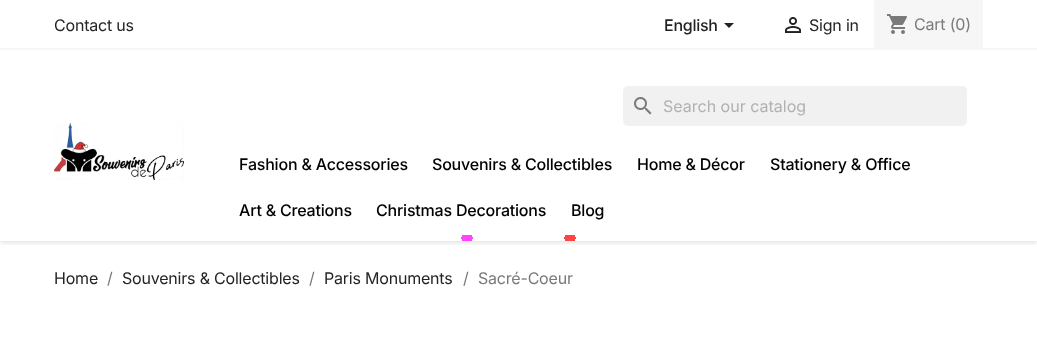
<!DOCTYPE html>
<meta charset="utf-8">
<style>body { margin: 0 } canvas { display: block }</style>
<canvas id="canvas" width="1037" height="342"></canvas>
<script type="module">
  const canvas = document.getElementById("canvas");
  const ctx = canvas.getContext("2d");
  ctx.miterLimit = 4;
  ctx.fontKerning = "normal";
  async function loadImage(src) {
    const img = new Image();
    img.src = src;
    await img.decode();
    return img;
  }
  let gradient;

  ctx.fillStyle = "#ffffff";
  ctx.fillRect(0, 0, 1037, 342);
  ctx.save();
  ctx.beginPath();
  ctx.rect(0, 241, 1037, 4);
  ctx.clip();
  ctx.fillStyle = "rgba(0, 0, 0, 0.11)";
  ctx.filter = "blur(2.5px)";
  ctx.beginPath();
  ctx.rect(0, 2, 1037, 241);
  ctx.fill();
  ctx.filter = "none";
  ctx.restore();
  ctx.fillStyle = "#f6f6f6";
  ctx.fillRect(0, 48, 1037, 2);
  ctx.letterSpacing = "-0.2px";
  ctx.font = "16px Inter";
  ctx.fillStyle = "#232323";
  ctx.fillText("Contact us", 54, 31);
  ctx.letterSpacing = "-0.25px";
  ctx.font = "500 16px Inter";
  ctx.fillText("English", 664, 31);
  ctx.beginPath();
  ctx.moveTo(724, 23);
  ctx.lineTo(734, 23);
  ctx.lineTo(729, 28);
  ctx.closePath();
  ctx.fill();
  ctx.drawImage(await loadImage("img1.png"), 785, 17, 16, 16);
  ctx.letterSpacing = "-0.2px";
  ctx.font = "16px Inter";
  ctx.fillText("Sign in", 809, 31);
  ctx.fillStyle = "#f6f6f6";
  ctx.fillRect(874, 0, 109, 48);
  ctx.drawImage(await loadImage("img2.png"), 887, 14, 20, 20);
  ctx.fillStyle = "#7a7a7a";
  ctx.fillText("Cart (0)", 914, 30);
  ctx.drawImage(await loadImage("img3.png"), 54, 123, 130, 57);
  ctx.fillStyle = "#f1f1f1";
  ctx.beginPath();
  ctx.roundRect(623, 86, 344, 40, 5);
  ctx.fill();
  ctx.drawImage(await loadImage("img4.png"), 634, 97, 18, 18);
  ctx.letterSpacing = "0px";
  ctx.fillStyle = "#b1b1b1";
  ctx.fillText("Search our catalog", 663, 112);
  ctx.letterSpacing = "-0.2px";
  ctx.font = "500 16px Inter";
  ctx.fillStyle = "#000000";
  ctx.fillText("Fashion & Accessories", 239, 170);
  ctx.fillText("Souvenirs & Collectibles", 432, 170);
  ctx.fillText("Home & Décor", 637, 170);
  ctx.fillText("Stationery & Office", 770, 170);
  ctx.fillText("Art & Creations", 239, 216);
  ctx.fillText("Christmas Decorations", 376, 216);
  ctx.fillText("Blog", 571, 216);
  gradient = ctx.createRadialGradient(570, 238, 0, 570, 238, 570);
  gradient.addColorStop(0.01, "#ff4444");
  gradient.addColorStop(0.01, "#ffffff");
  ctx.fillStyle = gradient;
  ctx.fillRect(564, 235, 12, 6);
  gradient = ctx.createRadialGradient(467, 238, 0, 467, 238, 570);
  gradient.addColorStop(0.01, "#ff44ff");
  gradient.addColorStop(0.01, "rgba(255, 68, 255, 0)");
  ctx.fillStyle = gradient;
  ctx.fillRect(461, 235, 12, 6);
  ctx.font = "16px Inter";
  ctx.fillStyle = "#232323";
  ctx.fillText("Home", 54, 284);
  ctx.fillStyle = "#7a7a7a";
  ctx.fillText("/", 107, 284);
  ctx.fillStyle = "#232323";
  ctx.fillText("Souvenirs & Collectibles", 122, 284);
  ctx.fillStyle = "#7a7a7a";
  ctx.fillText("/", 309, 284);
  ctx.fillStyle = "#232323";
  ctx.fillText("Paris Monuments", 324, 284);
  ctx.fillStyle = "#7a7a7a";
  ctx.fillText("/", 463, 284);
  ctx.fillText("Sacré-Coeur", 478, 284);
</script>
